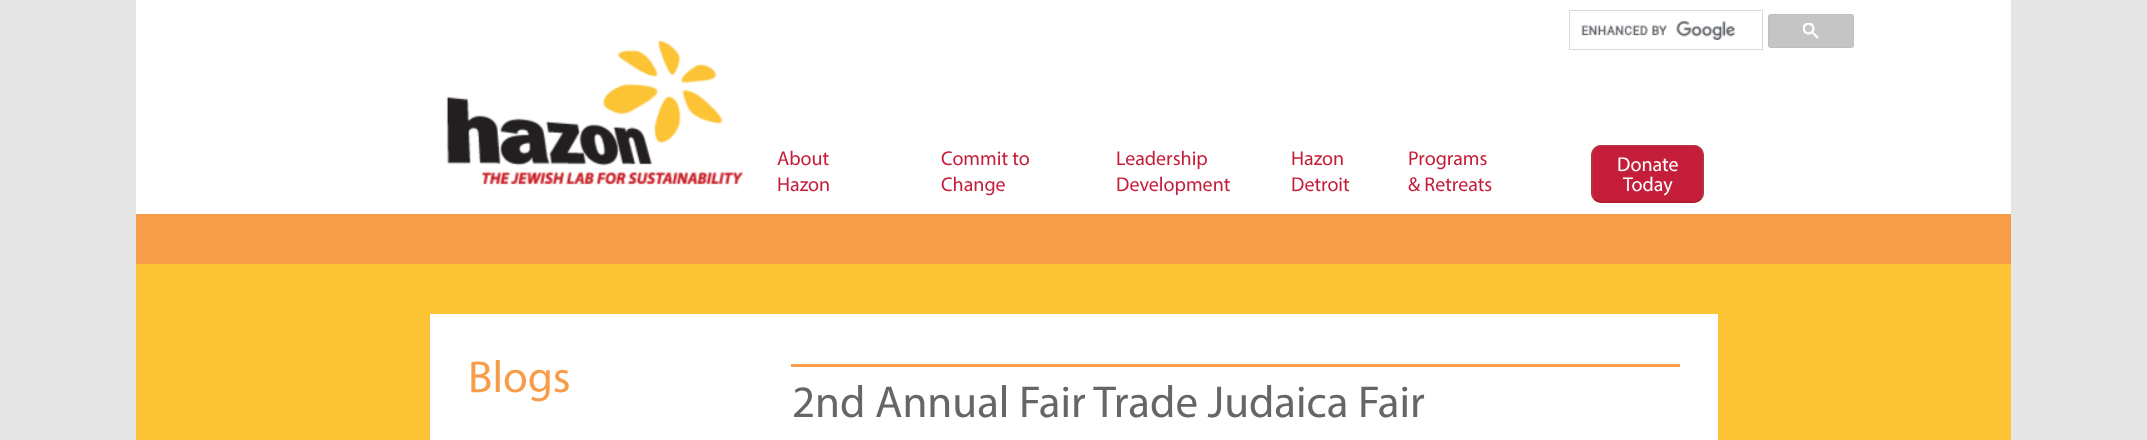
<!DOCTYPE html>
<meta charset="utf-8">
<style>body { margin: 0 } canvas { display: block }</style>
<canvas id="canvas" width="2147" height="440"></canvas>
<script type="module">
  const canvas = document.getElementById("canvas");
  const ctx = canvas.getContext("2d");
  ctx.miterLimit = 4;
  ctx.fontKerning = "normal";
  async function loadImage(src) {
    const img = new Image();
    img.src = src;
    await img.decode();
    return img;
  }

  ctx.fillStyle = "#e6e6e6";
  ctx.fillRect(0, 0, 2147, 440);
  ctx.fillStyle = "#ffffff";
  ctx.fillRect(136, 0, 1875, 214);
  ctx.strokeStyle = "#d9d9d9";
  ctx.strokeRect(1569.5, 10.5, 193, 39);
  ctx.drawImage(await loadImage("img1.png"), 1581, 21, 154, 19);
  ctx.fillStyle = "#c5c5c5";
  ctx.beginPath();
  ctx.roundRect(1768.5, 14.5, 85, 33, 2);
  ctx.fill();
  ctx.strokeStyle = "#bfbfbf";
  ctx.stroke();
  ctx.drawImage(await loadImage("img2.png"), 1803, 23, 16, 16);
  ctx.fillStyle = "#fcc334";
  ctx.fillRect(136, 264, 1875, 176);
  ctx.drawImage(await loadImage("img3.png"), 446, 40, 297, 145);
  ctx.font = "20px Myriad";
  ctx.fillStyle = "#c41e3a";
  ctx.fillText("About", 777, 165);
  ctx.fillText("Hazon", 777, 191);
  ctx.fillText("Commit to", 941, 165);
  ctx.fillText("Change", 941, 191);
  ctx.fillText("Leadership", 1116, 165);
  ctx.fillText("Development", 1116, 191);
  ctx.fillText("Hazon", 1291, 165);
  ctx.fillText("Detroit", 1291, 191);
  ctx.fillText("Programs", 1408, 165);
  ctx.fillText("& Retreats", 1408, 191);
  ctx.beginPath();
  ctx.roundRect(1591, 145, 113, 58, 10);
  ctx.fill();
  ctx.beginPath();
  ctx.moveTo(1700.5, 199);
  ctx.bezierCurveTo(1698.5, 201, 1696, 202, 1694, 202);
  ctx.lineTo(1601, 202);
  ctx.bezierCurveTo(1599, 202, 1596.5, 201, 1594.5, 199);
  ctx.strokeStyle = "#9a2020";
  ctx.lineWidth = 1.2;
  ctx.stroke();
  ctx.beginPath();
  ctx.moveTo(1594.5, 199);
  ctx.bezierCurveTo(1593, 197.5, 1592, 195, 1592, 192.5);
  ctx.lineTo(1592, 155);
  ctx.bezierCurveTo(1592, 152.5, 1593, 150, 1594.5, 148.5);
  ctx.bezierCurveTo(1596.5, 146.5, 1599, 145.5, 1601, 145.5);
  ctx.lineTo(1694, 145.5);
  ctx.bezierCurveTo(1696, 145.5, 1698.5, 146.5, 1700.5, 148.5);
  ctx.bezierCurveTo(1702, 150, 1703, 152.5, 1703, 155);
  ctx.lineTo(1703, 192.5);
  ctx.bezierCurveTo(1703, 195, 1702, 197.5, 1700.5, 199);
  ctx.strokeStyle = "#af4040";
  ctx.stroke();
  ctx.fillStyle = "#ffffff";
  ctx.fillText("Donate", 1617, 171);
  ctx.fillText("Today", 1623, 191);
  ctx.fillStyle = "#f79d49";
  ctx.fillRect(136, 214, 1875, 50);
  ctx.fillStyle = "#ffffff";
  ctx.fillRect(430, 314, 1288, 126);
  ctx.font = "45px Myriad";
  ctx.fillStyle = "#f79d49";
  ctx.fillText("Blogs", 468, 392);
  ctx.fillRect(791, 364, 889, 3);
  ctx.fillStyle = "#666666";
  ctx.fillText("2nd Annual Fair Trade Judaica Fair", 792, 417);
</script>
